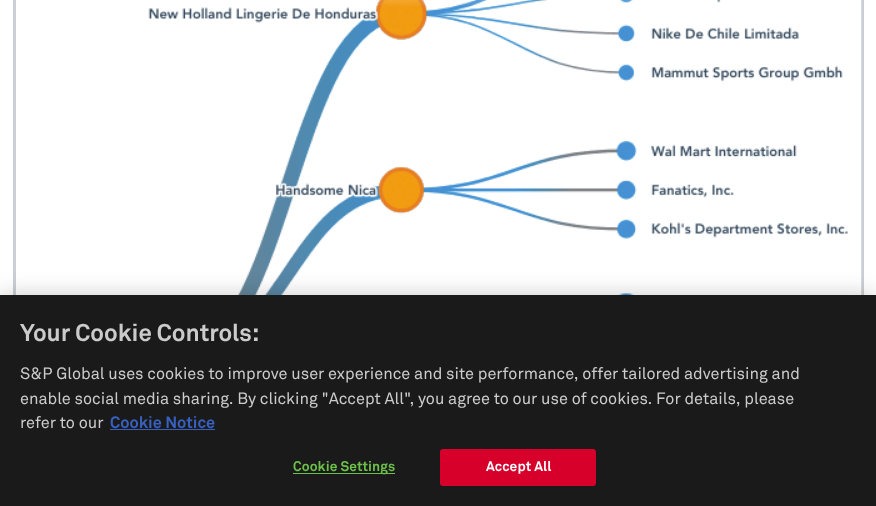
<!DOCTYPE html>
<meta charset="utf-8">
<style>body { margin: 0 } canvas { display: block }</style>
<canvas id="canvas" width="876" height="506"></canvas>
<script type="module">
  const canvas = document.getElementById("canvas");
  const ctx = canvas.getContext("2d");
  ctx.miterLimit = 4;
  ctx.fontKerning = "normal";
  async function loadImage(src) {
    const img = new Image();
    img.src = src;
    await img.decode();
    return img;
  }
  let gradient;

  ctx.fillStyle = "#ffffff";
  ctx.fillRect(0, 0, 876, 506);
  ctx.strokeStyle = "#cacfd3";
  ctx.lineWidth = 3;
  ctx.strokeRect(14.5, -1.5, 848, 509);
  ctx.drawImage(await loadImage("img1.png"), 71, 0, 791, 295);
  gradient = ctx.createLinearGradient(451, -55, 451, 7.5);
  gradient.addColorStop(0, "#ffffff");
  gradient.addColorStop(1, "rgba(255, 255, 255, 0)");
  ctx.fillStyle = gradient;
  ctx.fillRect(377, 0, 343, 6);
  ctx.fillStyle = "rgba(0, 0, 0, 0.2)";
  ctx.filter = "blur(11px)";
  ctx.beginPath();
  ctx.rect(0, 295, 876, 211);
  ctx.fill();
  ctx.filter = "none";
  ctx.fillStyle = "#1a1a1a";
  ctx.fillRect(0, 295, 876, 211);
  ctx.font = "bold 24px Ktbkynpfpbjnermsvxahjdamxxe";
  ctx.fillStyle = "#cbcbcb";
  ctx.fillText("Your Cookie Controls:", 20, 341);
  ctx.font = "16.25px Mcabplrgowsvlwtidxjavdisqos";
  ctx.fillText("S&P Global uses cookies to improve user experience and site performance, offer tailored advertising and", 20, 379);
  ctx.fillText("enable social media sharing. By clicking \"Accept All\", you agree to our use of cookies. For details, please", 20, 404);
  ctx.fillText("refer to our", 20, 428);
  ctx.font = "bold 16.25px Ktbkynpfpbjnermsvxahjdamxxe";
  ctx.fillStyle = "#3860be";
  ctx.fillText("Cookie Notice", 110, 428);
  ctx.fillRect(110, 429, 105, 1);
  ctx.fillStyle = "#6cc04a";
  ctx.fillRect(293, 473, 102, 1);
  ctx.letterSpacing = "0.1px";
  ctx.font = "bold 13.75px Ktbkynpfpbjnermsvxahjdamxxe";
  ctx.fillText("Cookie Settings", 293, 471);
  ctx.fillStyle = "#d6002a";
  ctx.beginPath();
  ctx.roundRect(440.5, 449.5, 155, 36, 2);
  ctx.fill();
  ctx.strokeStyle = "#d6002a";
  ctx.lineWidth = 1;
  ctx.stroke();
  ctx.fillStyle = "#ffffff";
  ctx.fillText("Accept All", 486, 471);
</script>
